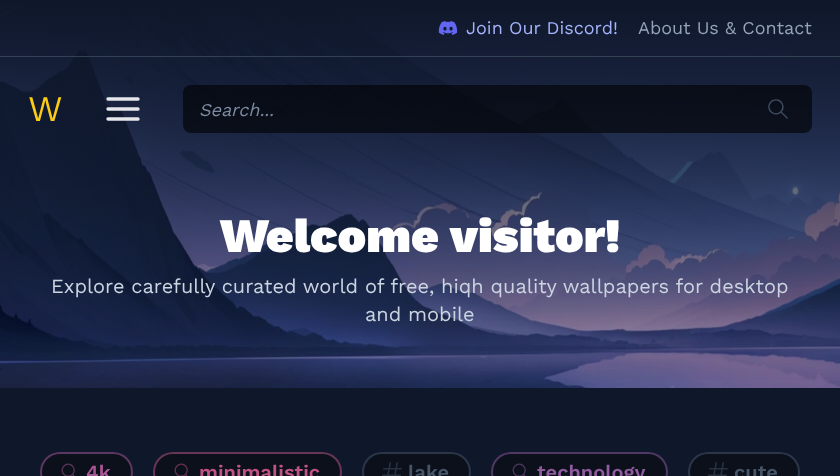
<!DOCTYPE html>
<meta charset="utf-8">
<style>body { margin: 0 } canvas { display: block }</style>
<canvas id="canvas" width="840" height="476"></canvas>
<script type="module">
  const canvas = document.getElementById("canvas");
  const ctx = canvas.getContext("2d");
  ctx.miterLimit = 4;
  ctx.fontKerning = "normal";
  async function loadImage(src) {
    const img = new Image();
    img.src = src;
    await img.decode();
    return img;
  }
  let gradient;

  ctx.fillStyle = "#0f172a";
  ctx.fillRect(0, 0, 840, 476);
  ctx.drawImage(await loadImage("img4.png"), 0, 2, 840, 386);
  gradient = ctx.createLinearGradient(420, 0, 420, 388);
  gradient.addColorStop(0, "#0f172a");
  gradient.addColorStop(1, "rgba(15, 23, 42, 0)");
  ctx.fillStyle = gradient;
  ctx.fillRect(0, 2, 840, 378);
  ctx.drawImage(await loadImage("img1.png"), 438, 21, 20, 14);
  ctx.font = "18px Work Sans";
  ctx.fillStyle = "#a5b4fc";
  ctx.fillText("Join Our Discord!", 466, 34);
  ctx.fillStyle = "#94a3b8";
  ctx.fillText("About Us & Contact", 638, 34);
  ctx.fillStyle = "#334155";
  ctx.fillRect(0, 56, 840, 1);
  ctx.font = "36px Work Sans";
  ctx.fillStyle = "#facc15";
  ctx.fillText("W", 28, 121);
  ctx.drawImage(await loadImage("img2.png"), 106, 97, 34, 24);
  ctx.fillStyle = "rgba(0, 0, 0, 0.6)";
  ctx.beginPath();
  ctx.roundRect(183, 85, 629, 48, 8);
  ctx.fill();
  ctx.font = "italic 18px Work Sans";
  ctx.fillStyle = "#7c8ba1";
  ctx.fillText("Search...", 199, 116);
  ctx.drawImage(await loadImage("img3.png"), 768, 99, 20, 20);
  ctx.font = "900 48px Work Sans";
  ctx.fillStyle = "#ffffff";
  ctx.fillText("Welcome visitor!", 220, 252);
  ctx.font = "20px Work Sans";
  ctx.fillStyle = "#cbd5e1";
  ctx.fillText("Explore carefully curated world of free, hiqh quality wallpapers for desktop", 51, 293);
  ctx.fillText("and mobile", 365, 321);
  ctx.fillStyle = "#5c375f";
  ctx.beginPath();
  ctx.roundRect(40, 452, 93, 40, 20);
  ctx.fill();
  ctx.fillStyle = "#0c101b";
  ctx.beginPath();
  ctx.roundRect(42, 454, 89, 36, 18);
  ctx.fill();
  ctx.drawImage(await loadImage("img5.png"), 61, 463, 14, 13);
  ctx.font = "600 20px Work Sans";
  ctx.fillStyle = "#a85794";
  ctx.fillText("4k", 86, 479);
  ctx.fillStyle = "#683556";
  ctx.beginPath();
  ctx.roundRect(153, 452, 189, 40, 20);
  ctx.fill();
  ctx.fillStyle = "#0c101b";
  ctx.beginPath();
  ctx.roundRect(155, 454, 185, 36, 18);
  ctx.fill();
  ctx.drawImage(await loadImage("img6.png"), 174, 463, 14, 13);
  ctx.fillStyle = "#c05382";
  ctx.fillText("minimalistic", 199, 479);
  ctx.fillStyle = "#2b364a";
  ctx.beginPath();
  ctx.roundRect(362, 452, 109, 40, 20);
  ctx.fill();
  ctx.fillStyle = "#0c101b";
  ctx.beginPath();
  ctx.roundRect(364, 454, 105, 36, 18);
  ctx.fill();
  ctx.drawImage(await loadImage("img7.png"), 382, 462, 20, 14);
  ctx.fillStyle = "#475569";
  ctx.fillText("lake", 408, 479);
  ctx.fillStyle = "#4f3964";
  ctx.beginPath();
  ctx.roundRect(491, 452, 177, 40, 20);
  ctx.fill();
  ctx.fillStyle = "#0c101b";
  ctx.beginPath();
  ctx.roundRect(493, 454, 173, 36, 18);
  ctx.fill();
  ctx.drawImage(await loadImage("img8.png"), 512, 463, 14, 13);
  ctx.fillStyle = "#8f5a9e";
  ctx.fillText("technology", 537, 479);
  ctx.fillStyle = "#2b364a";
  ctx.beginPath();
  ctx.roundRect(688, 452, 112, 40, 20);
  ctx.fill();
  ctx.fillStyle = "#0c101b";
  ctx.beginPath();
  ctx.roundRect(690, 454, 108, 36, 18);
  ctx.fill();
  ctx.drawImage(await loadImage("img7.png"), 708, 462, 20, 14);
  ctx.fillStyle = "#475569";
  ctx.fillText("cute", 734, 479);
</script>
